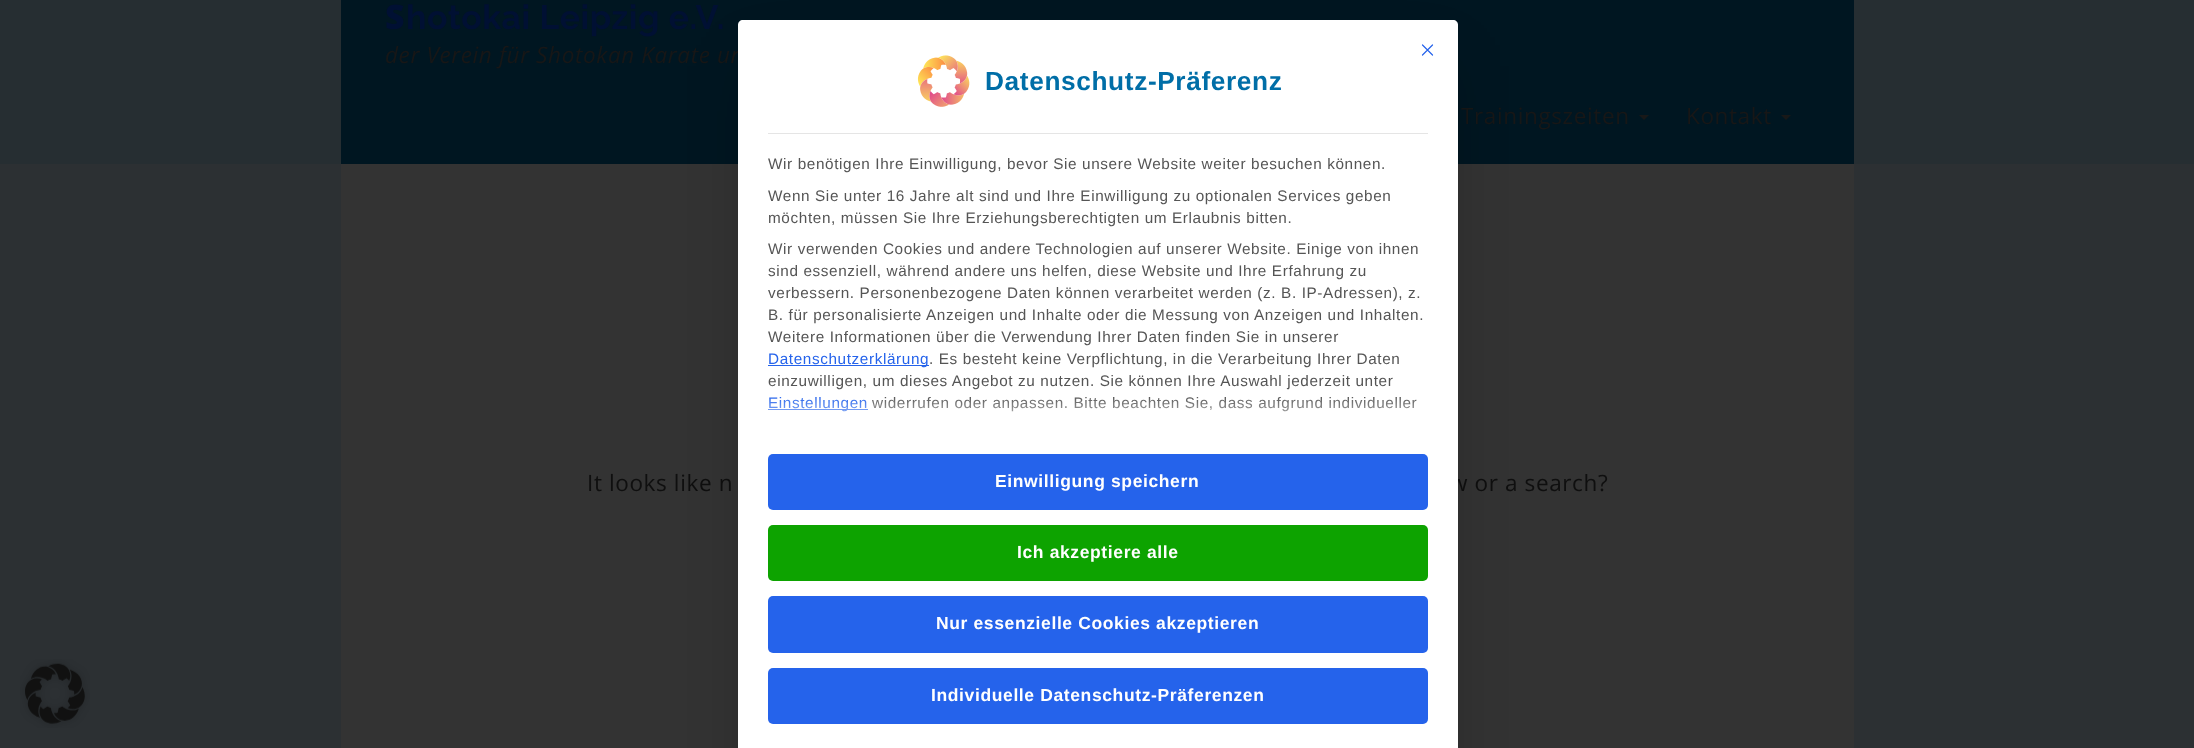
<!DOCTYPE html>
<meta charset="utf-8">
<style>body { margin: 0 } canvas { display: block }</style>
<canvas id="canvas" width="2194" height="748"></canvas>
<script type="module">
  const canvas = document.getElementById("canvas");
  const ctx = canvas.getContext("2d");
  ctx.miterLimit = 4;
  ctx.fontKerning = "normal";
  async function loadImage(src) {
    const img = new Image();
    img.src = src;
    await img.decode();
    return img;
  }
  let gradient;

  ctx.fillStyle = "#2c3033";
  ctx.fillRect(0, 0, 2194, 748);
  ctx.fillStyle = "#333333";
  ctx.fillRect(341, 164, 1513, 584);
  ctx.fillStyle = "#262e32";
  ctx.fillRect(0, 0, 2194, 164);
  ctx.fillStyle = "#001621";
  ctx.fillRect(341, 0, 1513, 164);
  ctx.letterSpacing = "0.62px";
  ctx.font = "900 33.75px Noto Sans";
  ctx.fillStyle = "#001033";
  ctx.fillText("S", 385, 29);
  ctx.font = "bold 33.75px Raleway";
  ctx.fillText("hotokai Leipzig e.V.", 406, 29);
  ctx.font = "italic 22.5px Open Sans";
  ctx.fillStyle = "#171717";
  ctx.fillText("der Verein für Shotokan Karate un", 385, 63);
  ctx.font = "22.5px Open Sans";
  ctx.fillText("Trainingszeiten", 1461, 124);
  ctx.fillStyle = "#181818";
  ctx.beginPath();
  ctx.moveTo(1639, 115);
  ctx.lineTo(1649, 115);
  ctx.lineTo(1644, 120);
  ctx.closePath();
  ctx.fill();
  ctx.fillStyle = "#171717";
  ctx.fillText("Kontakt", 1686, 124);
  ctx.fillStyle = "#181818";
  ctx.beginPath();
  ctx.moveTo(1781, 115);
  ctx.lineTo(1791, 115);
  ctx.lineTo(1786, 120);
  ctx.closePath();
  ctx.fill();
  ctx.fillStyle = "#0f0f0f";
  ctx.fillText("It looks like n", 587, 491);
  ctx.fillText("w or a search?", 1450, 491);
  ctx.drawImage(await loadImage("img1.png"), 20, 659, 70, 69);
  ctx.fillStyle = "rgba(0, 0, 0, 0.25)";
  ctx.filter = "blur(31px)";
  ctx.beginPath();
  ctx.rect(753, 66, 690, 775);
  ctx.fill();
  ctx.filter = "none";
  ctx.fillStyle = "#ffffff";
  ctx.beginPath();
  ctx.moveTo(743, 20);
  ctx.lineTo(1453, 20);
  ctx.bezierCurveTo(1456, 20, 1458, 22, 1458, 25);
  ctx.lineTo(1458, 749);
  ctx.lineTo(738, 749);
  ctx.lineTo(738, 25);
  ctx.bezierCurveTo(738, 22, 740, 20, 743, 20);
  ctx.closePath();
  ctx.fill();
  ctx.beginPath();
  ctx.moveTo(1422.5, 55);
  ctx.lineTo(1432.5, 45);
  ctx.moveTo(1422.5, 45);
  ctx.lineTo(1432.5, 55);
  ctx.strokeStyle = "#2563eb";
  ctx.lineWidth = 1.2;
  ctx.lineCap = "round";
  ctx.lineJoin = "round";
  ctx.stroke();
  ctx.fillStyle = "#e5e5e5";
  ctx.fillRect(768, 133, 660, 1);
  ctx.drawImage(await loadImage("img2.png"), 917, 55, 53, 52);
  ctx.font = "bold 26.25px Liberation Sans";
  ctx.fillStyle = "#006ea7";
  ctx.fillText("Datenschutz-Präferenz", 985, 90);
  ctx.font = "15.3px Liberation Sans";
  ctx.fillStyle = "#555555";
  ctx.fillText("Wir benötigen Ihre Einwilligung, bevor Sie unsere Website weiter besuchen können.", 768, 169);
  ctx.fillText("Wenn Sie unter 16 Jahre alt sind und Ihre Einwilligung zu optionalen Services geben", 768, 201);
  ctx.fillText("möchten, müssen Sie Ihre Erziehungsberechtigten um Erlaubnis bitten.", 768, 223);
  ctx.fillText("Wir verwenden Cookies und andere Technologien auf unserer Website. Einige von ihnen", 768, 254);
  ctx.fillText("sind essenziell, während andere uns helfen, diese Website und Ihre Erfahrung zu", 768, 276);
  ctx.fillText("verbessern. Personenbezogene Daten können verarbeitet werden (z. B. IP-Adressen), z.", 768, 298);
  ctx.fillText("B. für personalisierte Anzeigen und Inhalte oder die Messung von Anzeigen und Inhalten.", 768, 320);
  ctx.fillText("Weitere Informationen über die Verwendung Ihrer Daten finden Sie in unserer", 768, 342);
  ctx.fillStyle = "#2563eb";
  ctx.fillRect(768, 365, 161, 1);
  ctx.fillText("Datenschutzerklärung", 768, 364);
  ctx.fillStyle = "#555555";
  ctx.fillText(". Es besteht keine Verpflichtung, in die Verarbeitung Ihrer Daten", 929, 364);
  ctx.fillText("einzuwilligen, um dieses Angebot zu nutzen. Sie können Ihre Auswahl jederzeit unter", 768, 386);
  ctx.fillStyle = "#2563eb";
  ctx.fillRect(768, 409, 100, 1);
  ctx.fillText("Einstellungen", 768, 408);
  ctx.fillStyle = "#555555";
  ctx.fillText("widerrufen oder anpassen. Bitte beachten Sie, dass aufgrund individueller", 872, 408);
  gradient = ctx.createLinearGradient(1098, 434, 1098, 396);
  gradient.addColorStop(0, "#ffffff");
  gradient.addColorStop(1, "rgba(255, 255, 255, 0)");
  ctx.fillStyle = gradient;
  ctx.fillRect(768, 397, 650, 15);
  ctx.fillStyle = "#2563eb";
  ctx.beginPath();
  ctx.roundRect(768, 454, 660, 56, 5);
  ctx.fill();
  ctx.font = "bold 17.5px Liberation Sans";
  ctx.fillStyle = "#ffffff";
  ctx.fillText("Einwilligung speichern", 995, 487);
  ctx.fillStyle = "#0da300";
  ctx.beginPath();
  ctx.roundRect(768, 525, 660, 56, 5);
  ctx.fill();
  ctx.fillStyle = "#ffffff";
  ctx.fillText("Ich akzeptiere alle", 1017, 558);
  ctx.fillStyle = "#2563eb";
  ctx.beginPath();
  ctx.roundRect(768, 596, 660, 57, 5);
  ctx.fill();
  ctx.fillStyle = "#ffffff";
  ctx.fillText("Nur essenzielle Cookies akzeptieren", 936, 629);
  ctx.fillStyle = "#2563eb";
  ctx.beginPath();
  ctx.roundRect(768, 668, 660, 56, 5);
  ctx.fill();
  ctx.fillStyle = "#ffffff";
  ctx.fillText("Individuelle Datenschutz-Präferenzen", 931, 701);
</script>
